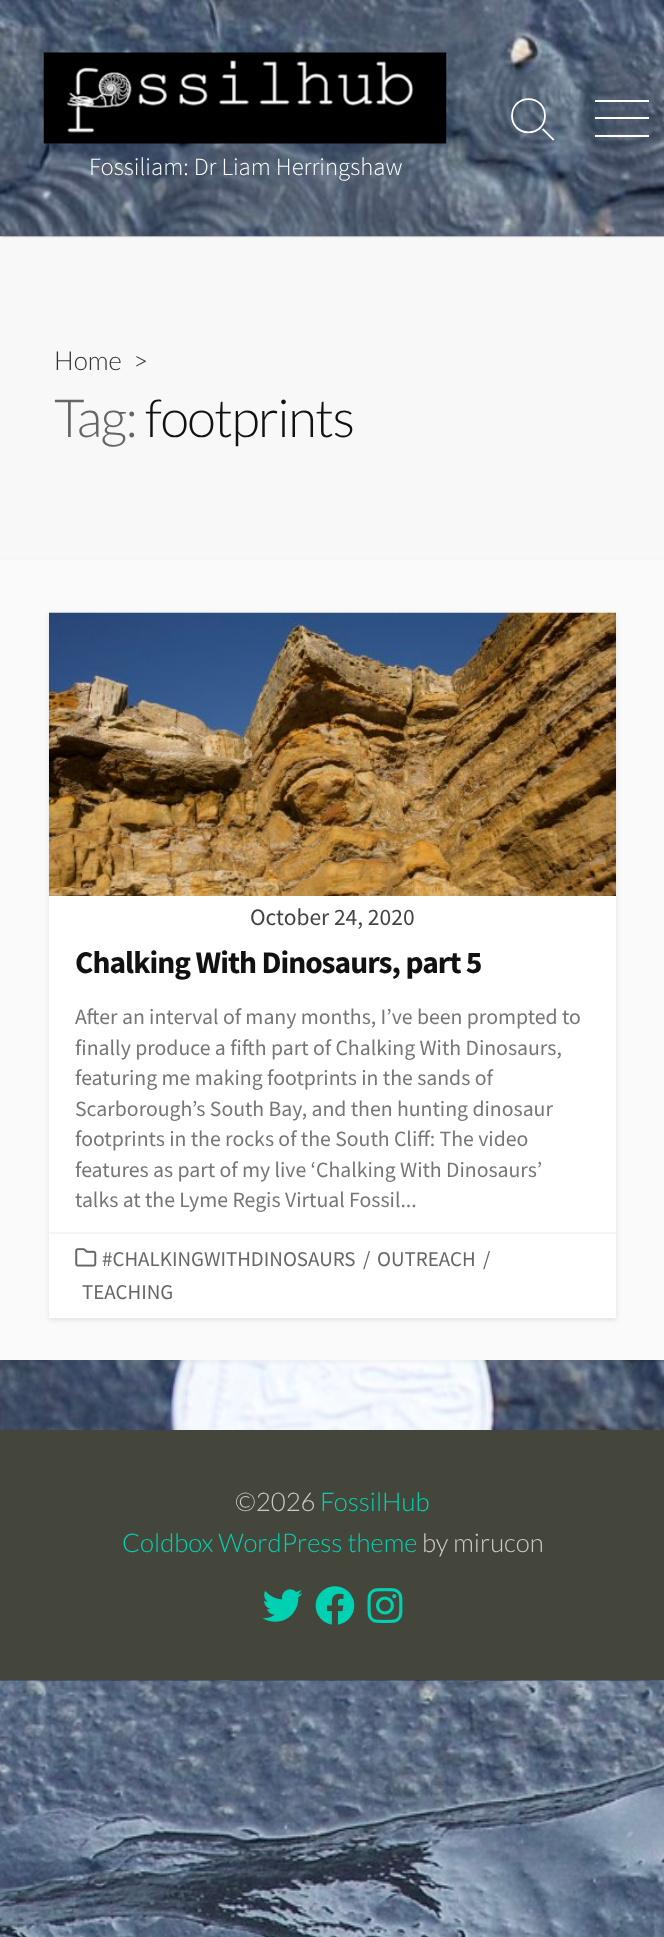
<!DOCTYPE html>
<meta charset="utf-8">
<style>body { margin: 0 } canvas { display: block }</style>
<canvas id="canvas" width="664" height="1937"></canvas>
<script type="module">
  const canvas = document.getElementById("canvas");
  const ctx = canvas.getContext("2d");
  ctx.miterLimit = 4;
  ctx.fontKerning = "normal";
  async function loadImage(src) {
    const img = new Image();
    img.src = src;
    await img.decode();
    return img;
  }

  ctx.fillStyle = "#ffffff";
  ctx.fillRect(0, 0, 664, 1937);
  ctx.drawImage(await loadImage("img1.png"), 0, 1360, 664, 577);
  ctx.fillStyle = "#f8f8f8";
  ctx.fillRect(0, 236, 664, 324);
  ctx.fillStyle = "rgba(0, 0, 0, 0.4)";
  ctx.filter = "blur(1px)";
  ctx.beginPath();
  ctx.rect(2, 0, 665, 236);
  ctx.fill();
  ctx.filter = "none";
  ctx.drawImage(await loadImage("img2.png"), 0, 0, 664, 237);
  ctx.beginPath();
  ctx.moveTo(516.5, 104);
  ctx.bezierCurveTo(523, 97.5, 534, 97.5, 540.5, 104);
  ctx.bezierCurveTo(546.5, 110.5, 546.5, 121, 540.5, 127.5);
  ctx.bezierCurveTo(534, 134, 523, 134, 516.5, 127.5);
  ctx.bezierCurveTo(510.5, 121, 510.5, 110.5, 516.5, 104);
  ctx.closePath();
  ctx.strokeStyle = "#ffffff";
  ctx.lineWidth = 1.8;
  ctx.stroke();
  ctx.fillStyle = "#ffffff";
  ctx.beginPath();
  ctx.moveTo(542, 129.5);
  ctx.lineTo(543.5, 128.5);
  ctx.lineTo(554.5, 139.5);
  ctx.lineTo(553, 140.5);
  ctx.closePath();
  ctx.fill();
  ctx.fillRect(595, 100, 54, 2);
  ctx.fillRect(595, 117, 54, 2);
  ctx.fillRect(595, 135, 54, 2);
  ctx.drawImage(await loadImage("img3.png"), 43, 52, 404, 92);
  ctx.font = "300 24.75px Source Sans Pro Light";
  ctx.fillText("Fossiliam: Dr Liam Herringshaw", 89, 175);
  ctx.font = "300 26px Lato";
  ctx.fillStyle = "#333333";
  ctx.fillText("Home", 54, 370);
  ctx.fillText(">", 133, 370);
  ctx.letterSpacing = "-1.5px";
  ctx.font = "300 52.5px Lato";
  ctx.fillStyle = "#666666";
  ctx.fillText("Tag:", 54, 437);
  ctx.fillStyle = "#111111";
  ctx.fillText("footprints", 145, 437);
  ctx.fillStyle = "rgba(0, 0, 0, 0.05)";
  ctx.filter = "blur(2.5px)";
  ctx.beginPath();
  ctx.rect(0, 562, 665, 800);
  ctx.fill();
  ctx.filter = "none";
  ctx.fillStyle = "#fafafa";
  ctx.fillRect(0, 560, 664, 800);
  ctx.fillStyle = "rgba(0, 0, 0, 0.1)";
  ctx.filter = "blur(2.5px)";
  ctx.beginPath();
  ctx.rect(49, 614, 567, 706);
  ctx.fill();
  ctx.filter = "none";
  ctx.fillStyle = "#ffffff";
  ctx.fillRect(49, 896, 567, 422);
  ctx.fillStyle = "#f5f5f5";
  ctx.fillRect(49, 1232, 567, 2);
  ctx.drawImage(await loadImage("img4.png"), 49, 612, 567, 284);
  ctx.letterSpacing = "0px";
  ctx.font = "23.5px Source Sans Pro";
  ctx.fillStyle = "#434343";
  ctx.fillText("October 24, 2020", 250, 925);
  ctx.letterSpacing = "-0.95px";
  ctx.font = "bold 31.5px Source Sans Pro";
  ctx.fillStyle = "#111111";
  ctx.fillText("Chalking With Dinosaurs, part 5", 75, 973);
  ctx.letterSpacing = "0px";
  ctx.font = "21.75px Source Sans Pro";
  ctx.fillStyle = "#777676";
  ctx.fillText("After an interval of many months, I’ve been prompted to", 75, 1024);
  ctx.fillText("finally produce a fifth part of Chalking With Dinosaurs,", 75, 1055);
  ctx.fillText("featuring me making footprints in the sands of", 75, 1085);
  ctx.fillText("Scarborough’s South Bay, and then hunting dinosaur", 75, 1116);
  ctx.fillText("footprints in the rocks of the South Cliff: The video", 75, 1146);
  ctx.fillText("features as part of my live ‘Chalking With Dinosaurs’", 75, 1177);
  ctx.fillText("talks at the Lyme Regis Virtual Fossil...", 75, 1207);
  ctx.drawImage(await loadImage("img5.png"), 75, 1248, 22, 19);
  ctx.font = "21px Source Sans Pro";
  ctx.fillStyle = "#666666";
  ctx.fillText("#CHALKINGWITHDINOSAURS", 102, 1266);
  ctx.fillText("/", 363, 1266);
  ctx.fillText("OUTREACH", 377, 1266);
  ctx.fillText("/", 483, 1266);
  ctx.fillText("TEACHING", 82, 1299);
  ctx.fillStyle = "#44463b";
  ctx.fillRect(0, 1430, 664, 250);
  ctx.font = "300 25.75px Lato";
  ctx.fillStyle = "#cbcbc8";
  ctx.fillText("©2026", 235, 1511);
  ctx.fillStyle = "#00d1b2";
  ctx.fillText("FossilHub", 320, 1511);
  ctx.fillText("Coldbox WordPress theme", 122, 1552);
  ctx.fillStyle = "#cbcbc8";
  ctx.fillText("by mirucon", 422, 1552);
  ctx.drawImage(await loadImage("img6.png"), 262, 1589, 41, 33);
  ctx.drawImage(await loadImage("img7.png"), 315, 1586, 40, 39);
  ctx.drawImage(await loadImage("img8.png"), 367, 1588, 36, 35);
</script>
